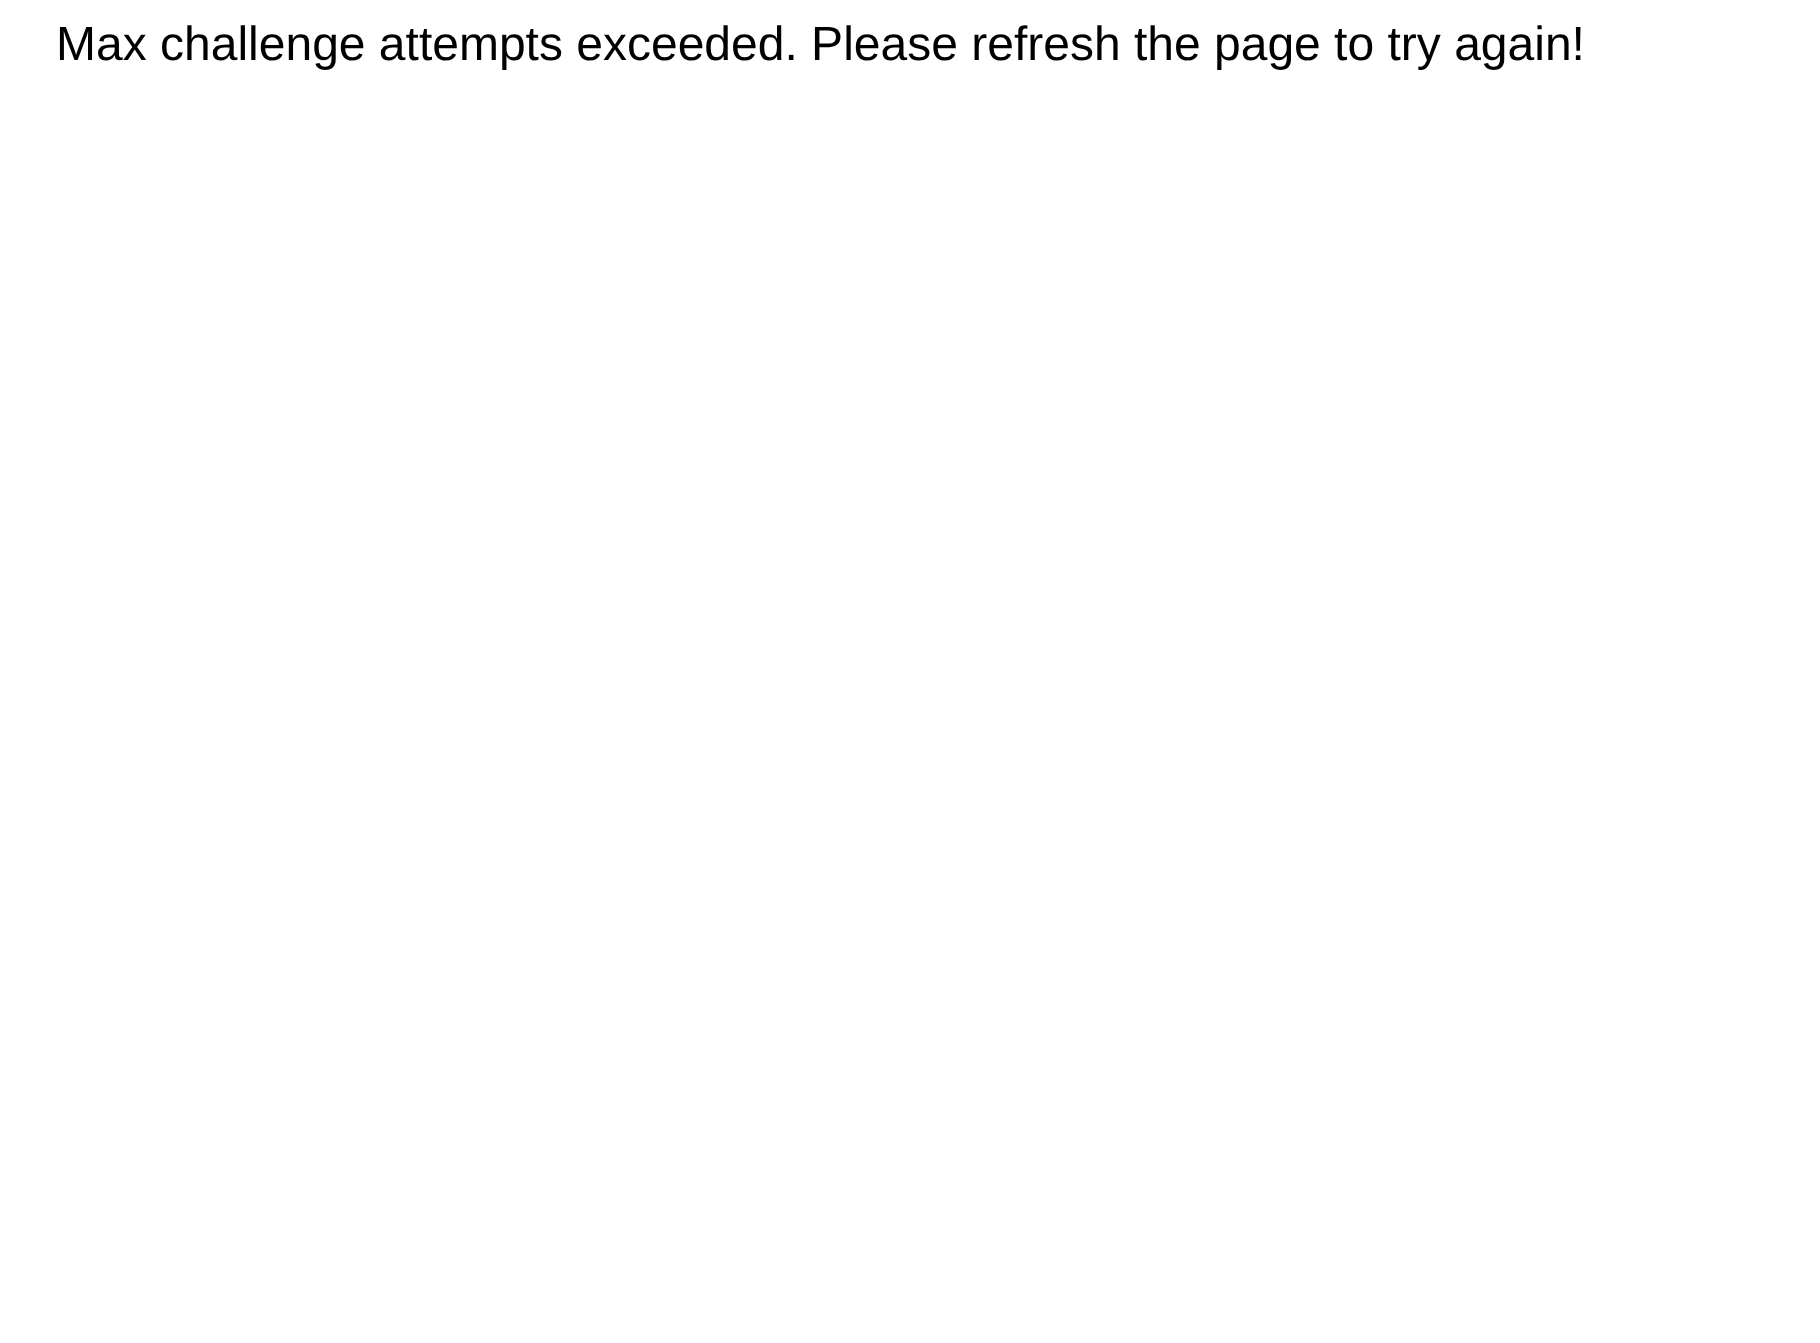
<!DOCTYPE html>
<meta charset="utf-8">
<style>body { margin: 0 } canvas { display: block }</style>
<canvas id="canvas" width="1820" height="1343"></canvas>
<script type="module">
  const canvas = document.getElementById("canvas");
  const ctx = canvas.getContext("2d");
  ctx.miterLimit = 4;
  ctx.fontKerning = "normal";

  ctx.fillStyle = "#ffffff";
  ctx.fillRect(0, 0, 1820, 1343);
  ctx.font = "48px Liberation Sans";
  ctx.fillStyle = "#000000";
  ctx.fillText("Max challenge attempts exceeded. Please refresh the page to try again!", 56, 60);
</script>
